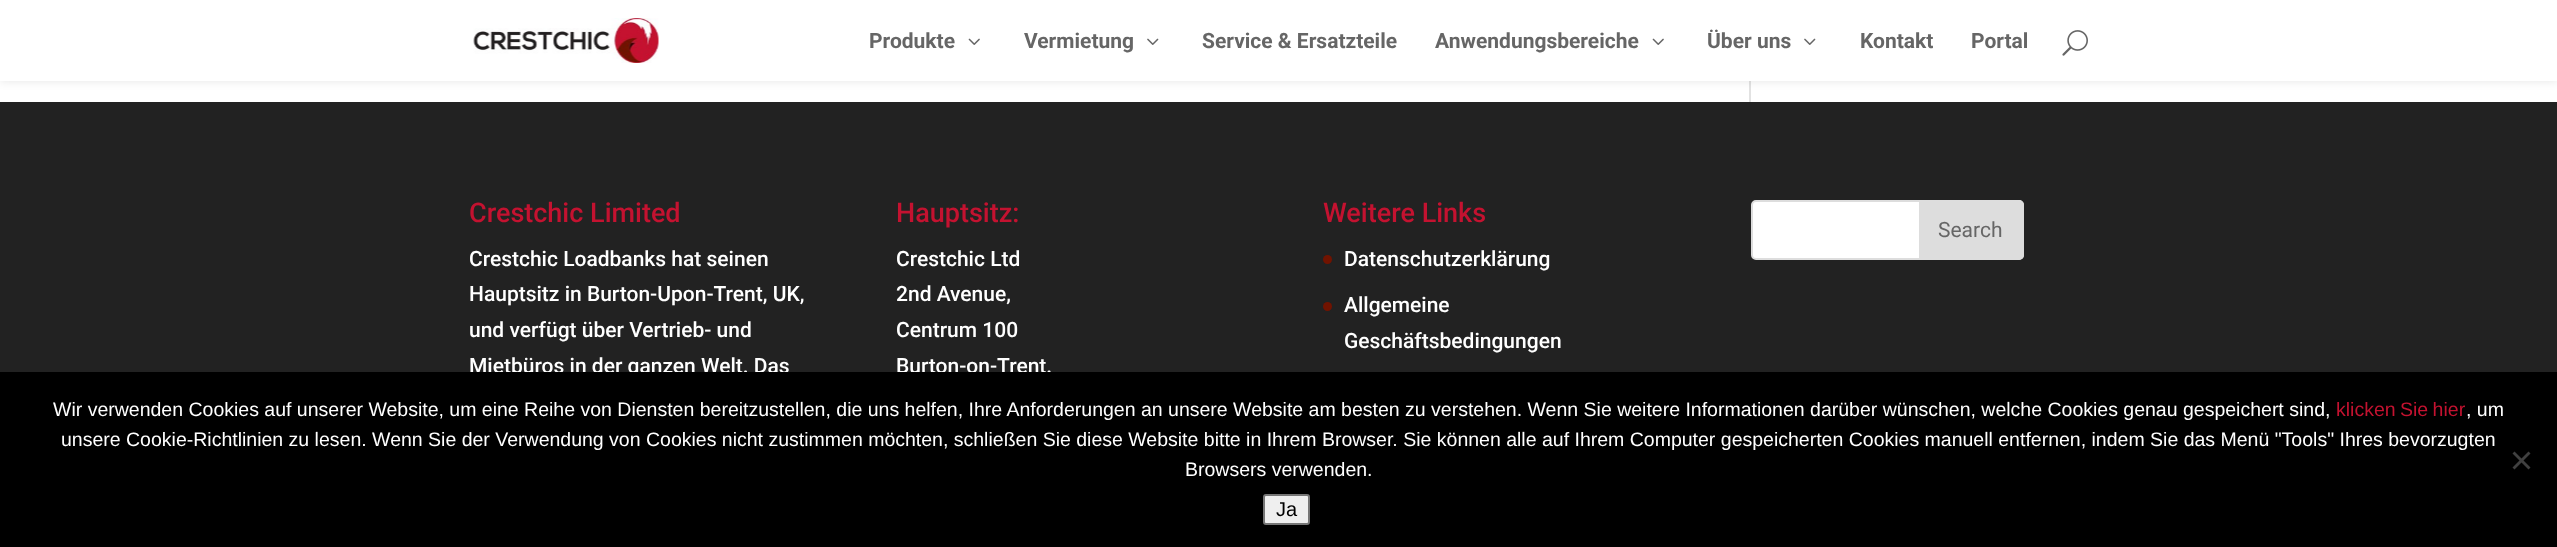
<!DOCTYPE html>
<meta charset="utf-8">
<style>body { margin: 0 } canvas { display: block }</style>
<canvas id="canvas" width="2557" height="547"></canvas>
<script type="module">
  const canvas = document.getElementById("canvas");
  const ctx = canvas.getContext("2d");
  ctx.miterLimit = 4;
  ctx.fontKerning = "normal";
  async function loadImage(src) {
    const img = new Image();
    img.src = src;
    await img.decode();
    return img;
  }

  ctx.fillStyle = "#ffffff";
  ctx.fillRect(0, 0, 2557, 547);
  ctx.fillStyle = "#e2e2e2";
  ctx.fillRect(1749, 81, 2, 21);
  ctx.fillStyle = "rgba(0, 0, 0, 0.1)";
  ctx.filter = "blur(5px)";
  ctx.beginPath();
  ctx.rect(0, 0, 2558, 81);
  ctx.fill();
  ctx.filter = "none";
  ctx.fillStyle = "#ffffff";
  ctx.fillRect(0, 0, 2557, 81);
  ctx.drawImage(await loadImage("img1.png"), 473, 18, 186, 45);
  ctx.font = "bold 21px Roboto";
  ctx.fillStyle = "#666666";
  ctx.fillText("Produkte", 869, 48);
  ctx.drawImage(await loadImage("img2.png"), 968, 38, 12, 7);
  ctx.fillText("Vermietung", 1024, 48);
  ctx.drawImage(await loadImage("img3.png"), 1147, 38, 12, 7);
  ctx.fillText("Service & Ersatzteile", 1202, 48);
  ctx.fillText("Anwendungsbereiche", 1435, 48);
  ctx.drawImage(await loadImage("img2.png"), 1652, 38, 12, 7);
  ctx.fillText("Über uns", 1707, 48);
  ctx.drawImage(await loadImage("img3.png"), 1804, 38, 12, 7);
  ctx.fillText("Kontakt", 1860, 48);
  ctx.fillText("Portal", 1971, 48);
  ctx.drawImage(await loadImage("img4.png"), 2062, 30, 26, 26);
  ctx.fillStyle = "#222222";
  ctx.fillRect(0, 102, 2557, 270);
  ctx.font = "500 27px Roboto";
  ctx.fillStyle = "#c41230";
  ctx.fillText("Crestchic Limited", 469, 222);
  ctx.font = "500 21px Roboto";
  ctx.fillStyle = "#ffffff";
  ctx.fillText("Crestchic Loadbanks hat seinen", 469, 266);
  ctx.fillText("Hauptsitz in Burton-Upon-Trent, UK,", 469, 301);
  ctx.fillText("und verfügt über Vertrieb- und", 469, 337);
  ctx.fillText("Mietbüros in der ganzen Welt. Das", 469, 373);
  ctx.font = "500 27px Roboto";
  ctx.fillStyle = "#c41230";
  ctx.fillText("Hauptsitz:", 896, 222);
  ctx.font = "500 21px Roboto";
  ctx.fillStyle = "#ffffff";
  ctx.fillText("Crestchic Ltd", 896, 266);
  ctx.fillText("2nd Avenue,", 896, 301);
  ctx.fillText("Centrum 100", 896, 337);
  ctx.fillText("Burton-on-Trent.", 896, 373);
  ctx.font = "500 27px Roboto";
  ctx.fillStyle = "#c41230";
  ctx.fillText("Weitere Links", 1323, 222);
  ctx.fillStyle = "#711300";
  ctx.beginPath();
  ctx.arc(1327.5, 259.5, 4.5, 0, Math.PI * 2);
  ctx.fill();
  ctx.font = "500 21px Roboto";
  ctx.fillStyle = "#ffffff";
  ctx.fillText("Datenschutzerklärung", 1344, 266);
  ctx.fillStyle = "#711300";
  ctx.beginPath();
  ctx.arc(1327.5, 306.5, 4.5, 0, Math.PI * 2);
  ctx.fill();
  ctx.fillStyle = "#ffffff";
  ctx.fillText("Allgemeine", 1344, 312);
  ctx.fillText("Geschäftsbedingungen", 1344, 348);
  ctx.beginPath();
  ctx.roundRect(1752, 201, 271, 58, 4);
  ctx.fill();
  ctx.strokeStyle = "#dddddd";
  ctx.lineWidth = 2;
  ctx.stroke();
  ctx.fillStyle = "#dddddd";
  ctx.beginPath();
  ctx.roundRect(1920, 201, 103, 58, [0, 4, 4, 0]);
  ctx.fill();
  ctx.stroke();
  ctx.font = "21px Roboto";
  ctx.fillStyle = "#666666";
  ctx.fillText("Search", 1938, 237);
  ctx.fillStyle = "#000000";
  ctx.fillRect(0, 372, 2557, 175);
  ctx.font = "19.5px Liberation Sans";
  ctx.fillStyle = "#ffffff";
  ctx.fillText("Wir verwenden Cookies auf unserer Website, um eine Reihe von Diensten bereitzustellen, die uns helfen, Ihre Anforderungen an unsere Website am besten zu verstehen. Wenn Sie weitere Informationen darüber wünschen, welche Cookies genau gespeichert sind,", 53, 416);
  ctx.wordSpacing = "-1px";
  ctx.fillStyle = "#c41230";
  ctx.fillText("klicken Sie hier", 2336, 416);
  ctx.wordSpacing = "0px";
  ctx.fillStyle = "#ffffff";
  ctx.fillText(", um", 2466, 416);
  ctx.fillText("unsere Cookie-Richtlinien zu lesen. Wenn Sie der Verwendung von Cookies nicht zustimmen möchten, schließen Sie diese Website bitte in Ihrem Browser. Sie können alle auf Ihrem Computer gespeicherten Cookies manuell entfernen, indem Sie das Menü \"Tools\" Ihres bevorzugten", 61, 446);
  ctx.fillText("Browsers verwenden.", 1185, 476);
  ctx.fillStyle = "#404040";
  ctx.beginPath();
  ctx.moveTo(2528.5, 451.5);
  ctx.lineTo(2530.5, 453.5);
  ctx.lineTo(2514.5, 469.5);
  ctx.lineTo(2512.5, 467.5);
  ctx.closePath();
  ctx.fill();
  ctx.beginPath();
  ctx.moveTo(2512.5, 453.5);
  ctx.lineTo(2514.5, 451.5);
  ctx.lineTo(2530.5, 467.5);
  ctx.lineTo(2528.5, 469.5);
  ctx.closePath();
  ctx.fill();
  ctx.fillStyle = "#efefef";
  ctx.beginPath();
  ctx.roundRect(1264, 495, 45, 29, 2);
  ctx.fill();
  ctx.strokeStyle = "#767676";
  ctx.stroke();
  ctx.font = "20px Liberation Sans";
  ctx.fillStyle = "#000000";
  ctx.fillText("Ja", 1276, 516);
</script>
